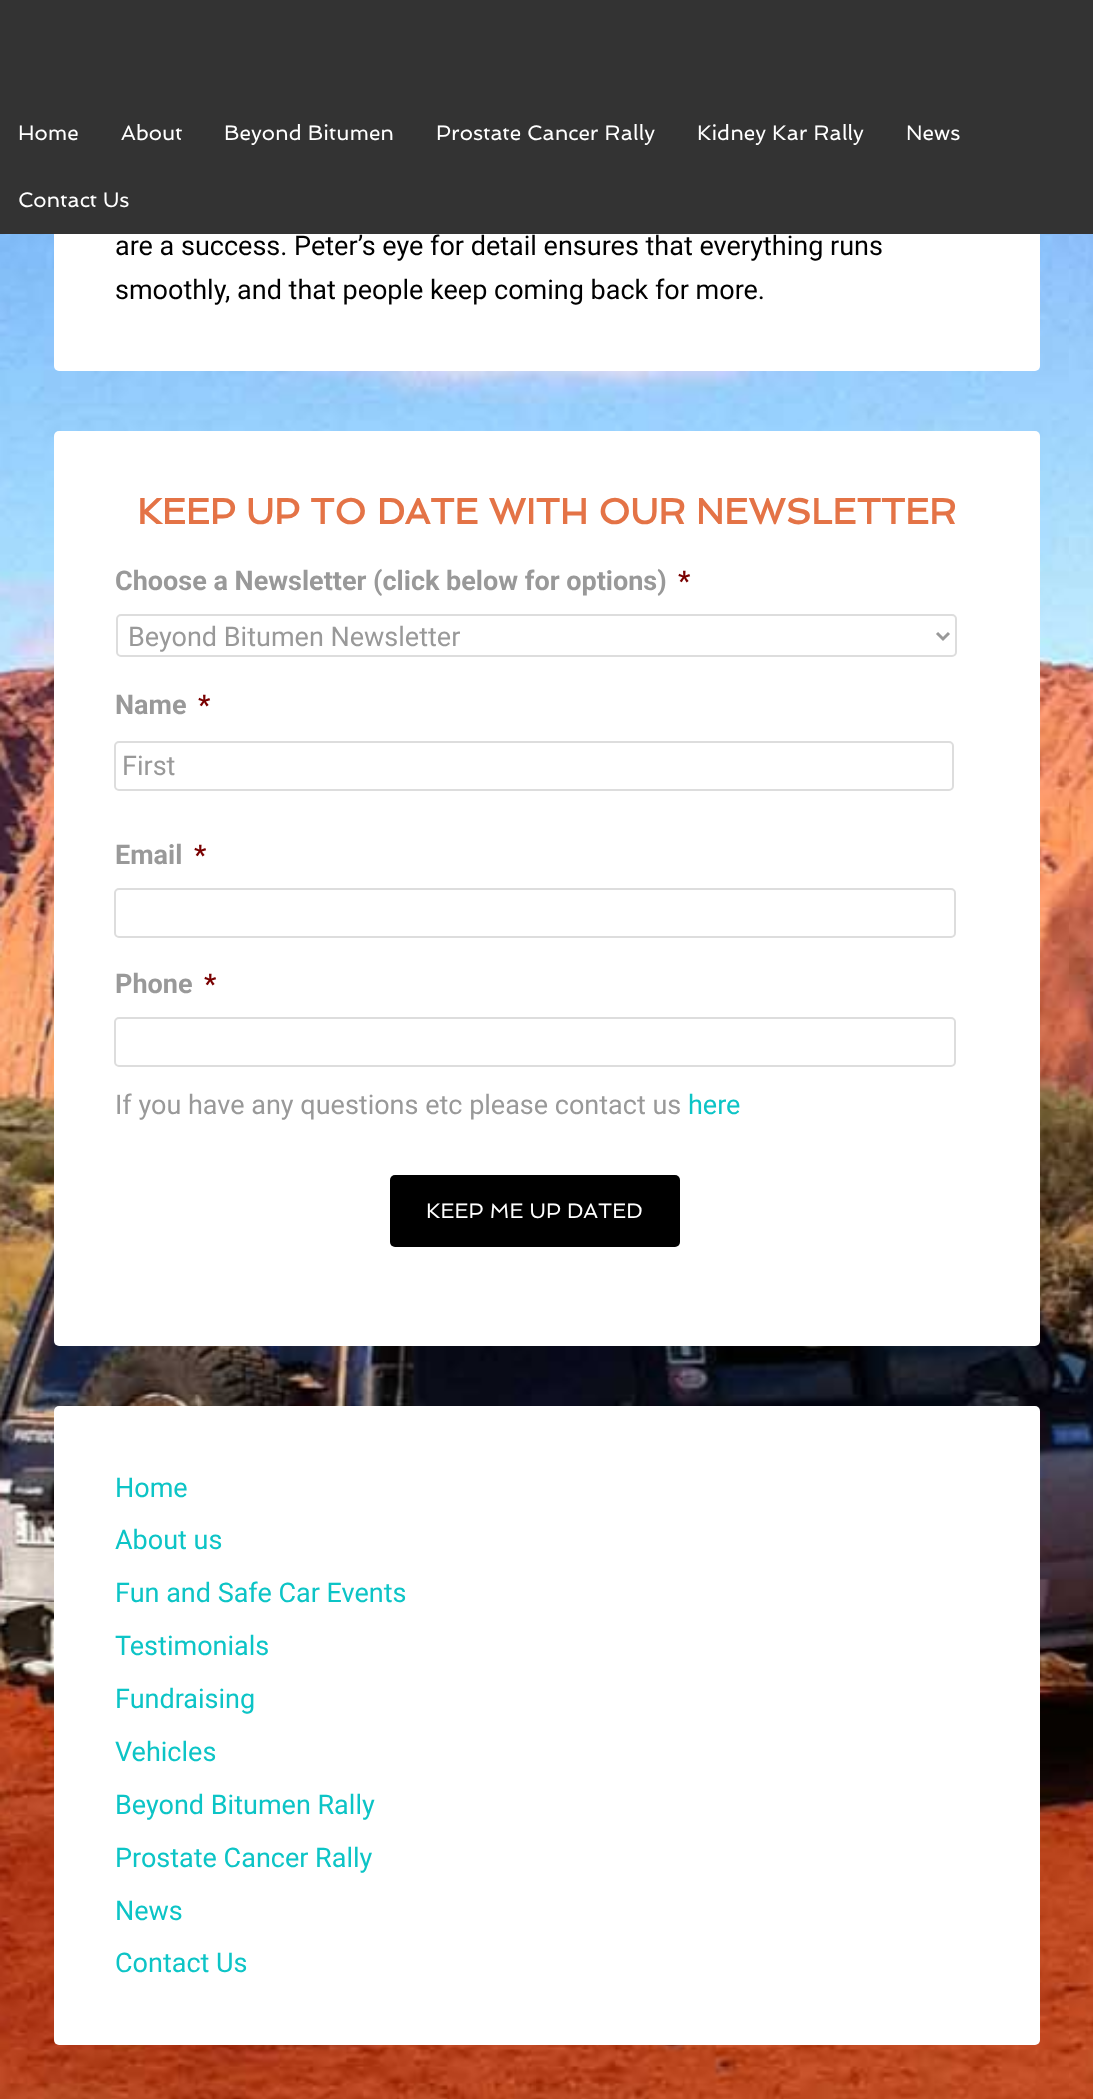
<!DOCTYPE html>
<meta charset="utf-8">
<style>body { margin: 0 } canvas { display: block }</style>
<canvas id="canvas" width="1093" height="2099"></canvas>
<script type="module">
  const canvas = document.getElementById("canvas");
  const ctx = canvas.getContext("2d");
  ctx.miterLimit = 4;
  ctx.fontKerning = "normal";
  async function loadImage(src) {
    const img = new Image();
    img.src = src;
    await img.decode();
    return img;
  }

  ctx.fillStyle = "#ffffff";
  ctx.fillRect(0, 0, 1093, 2099);
  ctx.drawImage(await loadImage("img1.png"), 0, 234, 1093, 1865);
  ctx.beginPath();
  ctx.roundRect(54, -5, 986, 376, 5);
  ctx.fill();
  ctx.fillStyle = "#333333";
  ctx.fillRect(0, 0, 1093, 234);
  ctx.font = "21px Spinnaker";
  ctx.fillStyle = "#ffffff";
  ctx.fillText("Home", 18, 140);
  ctx.fillText("About", 121, 140);
  ctx.fillText("Beyond Bitumen", 224, 140);
  ctx.fillText("Prostate Cancer Rally", 436, 140);
  ctx.fillText("Kidney Kar Rally", 697, 140);
  ctx.fillText("News", 906, 140);
  ctx.fillText("Contact Us", 18, 207);
  ctx.font = "27px Roboto";
  ctx.fillStyle = "#000000";
  ctx.fillText("are a success. Peter’s eye for detail ensures that everything runs", 115, 255);
  ctx.fillText("smoothly, and that people keep coming back for more.", 115, 299);
  ctx.fillStyle = "#ffffff";
  ctx.beginPath();
  ctx.roundRect(54, 431, 986, 915, 5);
  ctx.fill();
  ctx.font = "bold 36px Spinnaker";
  ctx.fillStyle = "#e47346";
  ctx.fillText("KEEP UP TO DATE WITH OUR NEWSLETTER", 137, 524);
  ctx.font = "bold 27px Roboto";
  ctx.fillStyle = "#999999";
  ctx.fillText("Choose a Newsletter (click below for options)", 115, 590);
  ctx.fillStyle = "#790000";
  ctx.fillText("*", 678, 590);
  ctx.beginPath();
  ctx.roundRect(117, 615, 839, 41, 4);
  ctx.strokeStyle = "#dddddd";
  ctx.lineWidth = 2;
  ctx.stroke();
  ctx.beginPath();
  ctx.moveTo(937, 633);
  ctx.lineTo(943, 639);
  ctx.lineTo(949, 633);
  ctx.strokeStyle = "#999999";
  ctx.lineWidth = 3;
  ctx.stroke();
  ctx.font = "27px Roboto";
  ctx.fillStyle = "#999999";
  ctx.fillText("Beyond Bitumen Newsletter", 128, 646);
  ctx.font = "bold 27px Roboto";
  ctx.fillText("Name", 115, 714);
  ctx.fillStyle = "#790000";
  ctx.fillText("*", 198, 714);
  ctx.beginPath();
  ctx.roundRect(115, 742, 838, 48, 4);
  ctx.strokeStyle = "#dddddd";
  ctx.lineWidth = 2;
  ctx.stroke();
  ctx.font = "27px Roboto";
  ctx.fillStyle = "#999999";
  ctx.fillText("First", 122, 775);
  ctx.font = "bold 27px Roboto";
  ctx.fillText("Email", 115, 864);
  ctx.fillStyle = "#790000";
  ctx.fillText("*", 194, 864);
  ctx.beginPath();
  ctx.roundRect(115, 889, 840, 48, 4);
  ctx.stroke();
  ctx.fillStyle = "#999999";
  ctx.fillText("Phone", 115, 993);
  ctx.fillStyle = "#790000";
  ctx.fillText("*", 204, 993);
  ctx.beginPath();
  ctx.roundRect(115, 1018, 840, 48, 4);
  ctx.stroke();
  ctx.font = "27px Roboto";
  ctx.fillStyle = "#999999";
  ctx.fillText("If you have any questions etc please contact us", 115, 1114);
  ctx.fillStyle = "#0cc4c6";
  ctx.fillText("here", 688, 1114);
  ctx.fillStyle = "#000000";
  ctx.beginPath();
  ctx.roundRect(390, 1175, 290, 72, 5);
  ctx.fill();
  ctx.font = "21px Spinnaker";
  ctx.fillStyle = "#ffffff";
  ctx.fillText("KEEP ME UP DATED", 426, 1218);
  ctx.beginPath();
  ctx.roundRect(54, 1406, 986, 639, 5);
  ctx.fill();
  ctx.font = "27px Roboto";
  ctx.fillStyle = "#0cc4c6";
  ctx.fillText("Home", 115, 1497);
  ctx.fillText("About us", 115, 1549);
  ctx.fillText("Fun and Safe Car Events", 115, 1602);
  ctx.fillText("Testimonials", 115, 1655);
  ctx.fillText("Fundraising", 115, 1708);
  ctx.fillText("Vehicles", 115, 1761);
  ctx.fillText("Beyond Bitumen Rally", 115, 1814);
  ctx.fillText("Prostate Cancer Rally", 115, 1867);
  ctx.fillText("News", 115, 1920);
  ctx.fillText("Contact Us", 115, 1972);
</script>
